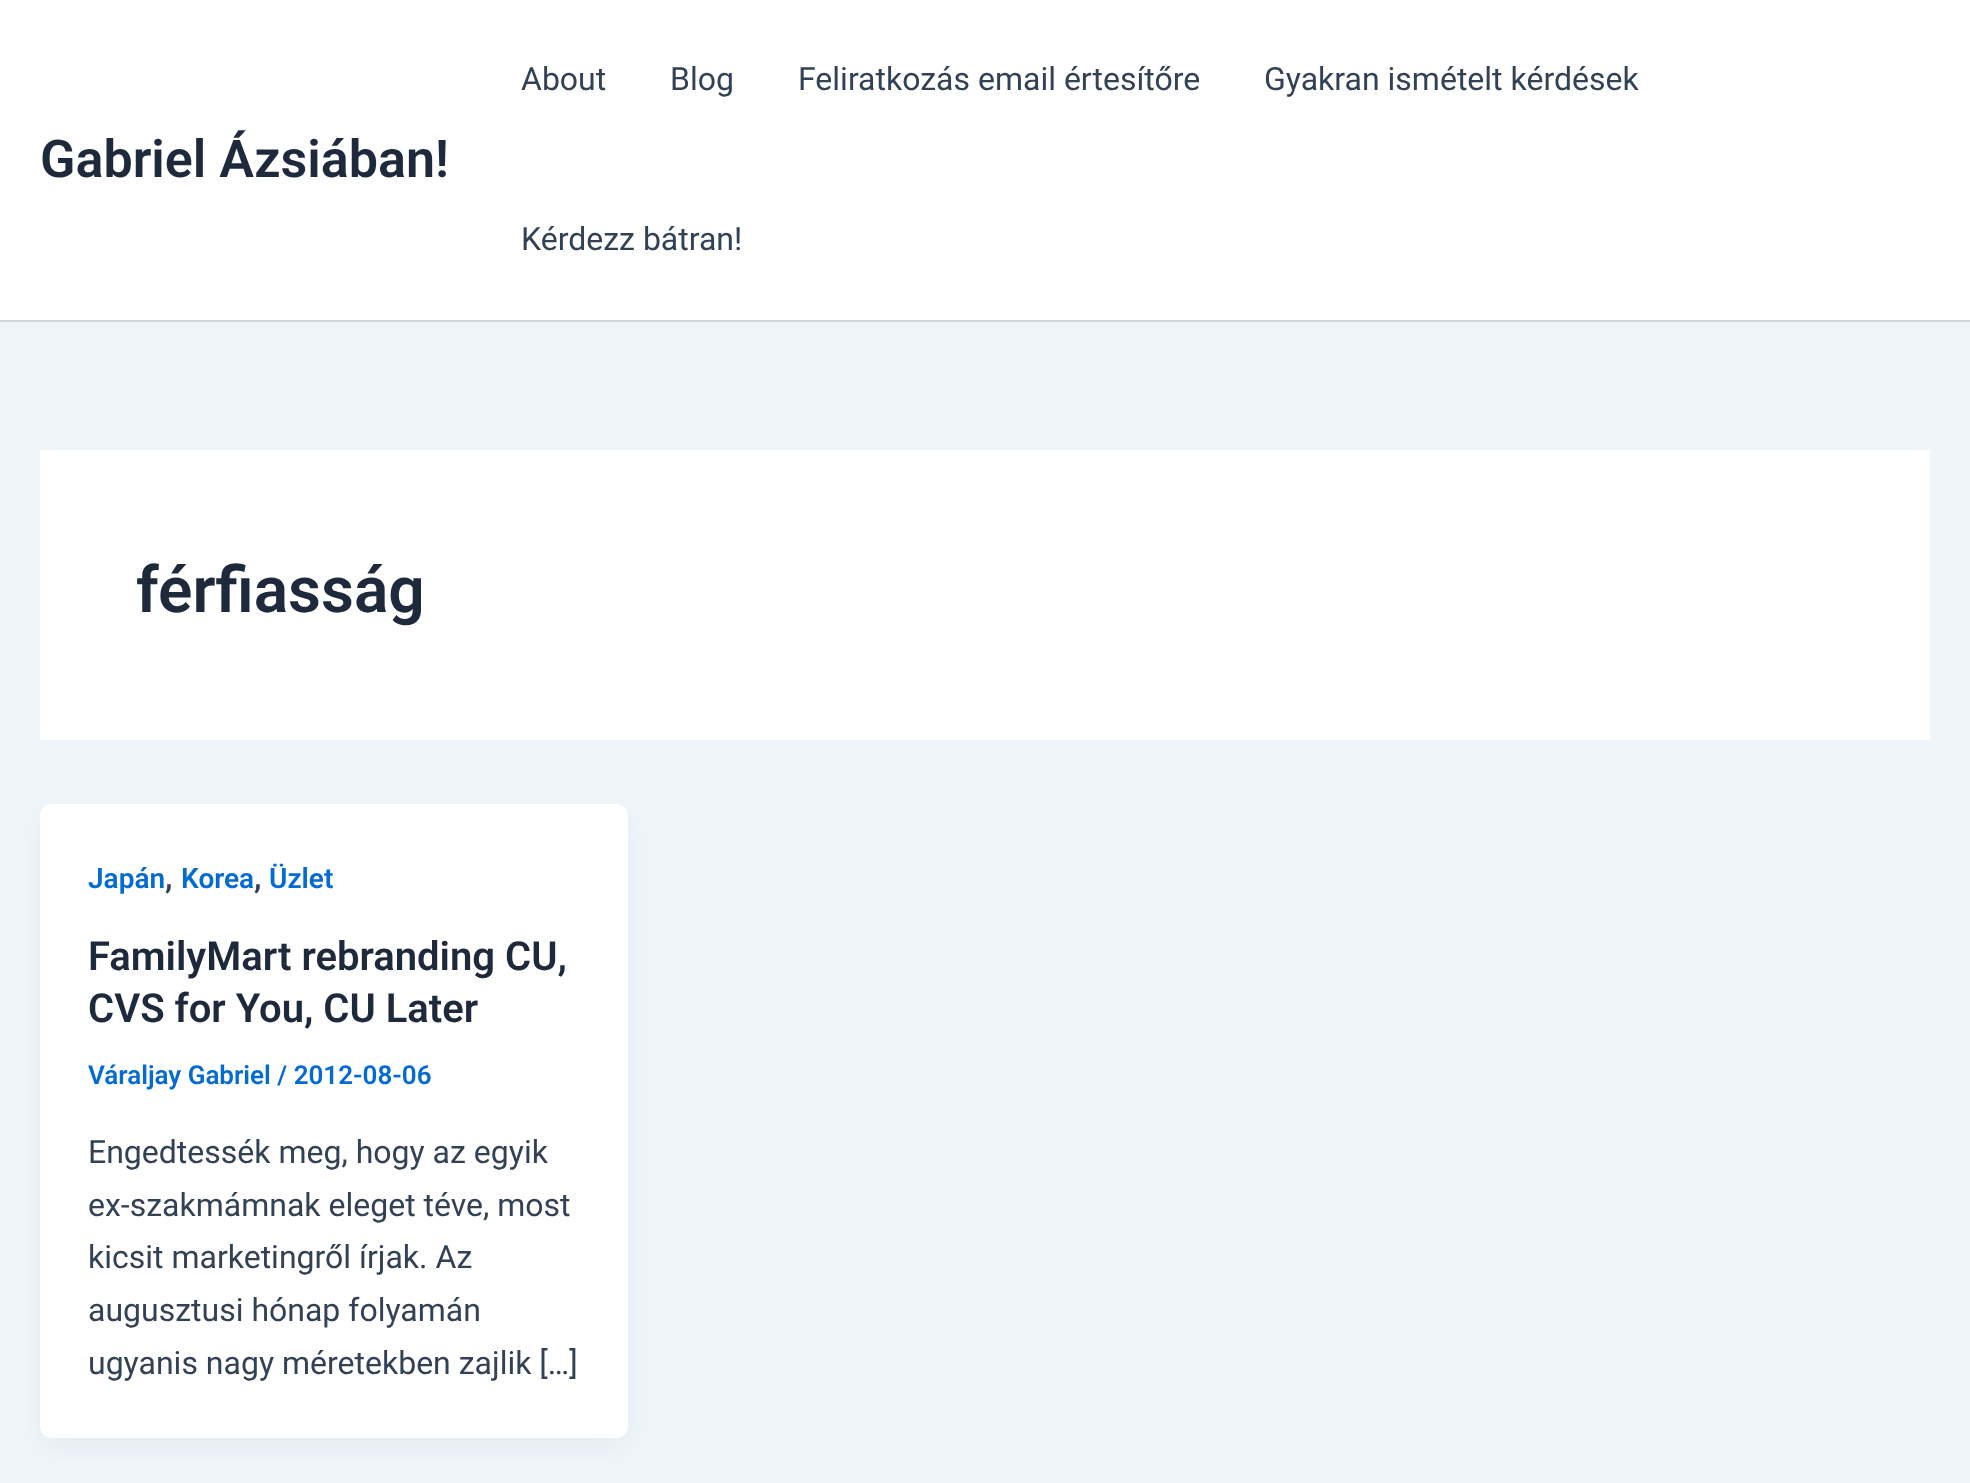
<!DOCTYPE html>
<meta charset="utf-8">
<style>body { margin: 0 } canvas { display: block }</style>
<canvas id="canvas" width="1970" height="1483"></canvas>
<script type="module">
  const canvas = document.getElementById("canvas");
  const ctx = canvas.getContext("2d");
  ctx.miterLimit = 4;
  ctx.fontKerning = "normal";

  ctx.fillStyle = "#f0f5fa";
  ctx.fillRect(0, 0, 1970, 1483);
  ctx.fillStyle = "#ffffff";
  ctx.fillRect(0, 0, 1970, 320);
  ctx.fillStyle = "#d1d5db";
  ctx.fillRect(0, 320, 1970, 2);
  ctx.font = "600 52px Roboto";
  ctx.fillStyle = "#1e293b";
  ctx.fillText("Gabriel Ázsiában!", 40, 177);
  ctx.font = "32px Roboto";
  ctx.fillStyle = "#334155";
  ctx.fillText("About", 521, 90);
  ctx.fillText("Blog", 670, 90);
  ctx.fillText("Feliratkozás email értesítőre", 798, 90);
  ctx.fillText("Gyakran ismételt kérdések", 1264, 90);
  ctx.fillText("Kérdezz bátran!", 521, 250);
  ctx.fillStyle = "#ffffff";
  ctx.fillRect(40, 450, 1890, 290);
  ctx.font = "600 64px Roboto";
  ctx.fillStyle = "#1e293b";
  ctx.fillText("férfiasság", 136, 612);
  ctx.fillStyle = "rgba(16, 24, 40, 0.05)";
  ctx.filter = "blur(15px)";
  ctx.beginPath();
  ctx.roundRect(44, 820, 580, 626, 8);
  ctx.fill();
  ctx.filter = "none";
  ctx.fillStyle = "#ffffff";
  ctx.beginPath();
  ctx.roundRect(40, 804, 588, 634, 12);
  ctx.fill();
  ctx.font = "600 28px Roboto";
  ctx.fillStyle = "#046bd2";
  ctx.fillText("Japán", 88, 888);
  ctx.font = "600 32px Roboto";
  ctx.fillStyle = "#334155";
  ctx.fillText(",", 165, 888);
  ctx.font = "600 28px Roboto";
  ctx.fillStyle = "#046bd2";
  ctx.fillText("Korea", 181, 888);
  ctx.font = "600 32px Roboto";
  ctx.fillStyle = "#334155";
  ctx.fillText(",", 254, 888);
  ctx.font = "600 28px Roboto";
  ctx.fillStyle = "#046bd2";
  ctx.fillText("Üzlet", 269, 888);
  ctx.font = "600 40px Roboto";
  ctx.fillStyle = "#1e293b";
  ctx.fillText("FamilyMart rebranding CU,", 88, 970);
  ctx.fillText("CVS for You, CU Later", 88, 1022);
  ctx.font = "600 26px Roboto";
  ctx.fillStyle = "#046bd2";
  ctx.fillText("Váraljay Gabriel / 2012-08-06", 88, 1084);
  ctx.font = "32px Roboto";
  ctx.fillStyle = "#334155";
  ctx.fillText("Engedtessék meg, hogy az egyik", 88, 1163);
  ctx.fillText("ex-szakmámnak eleget téve, most", 88, 1216);
  ctx.fillText("kicsit marketingről írjak. Az", 88, 1268);
  ctx.fillText("augusztusi hónap folyamán", 88, 1321);
  ctx.fillText("ugyanis nagy méretekben zajlik […]", 88, 1374);
</script>
